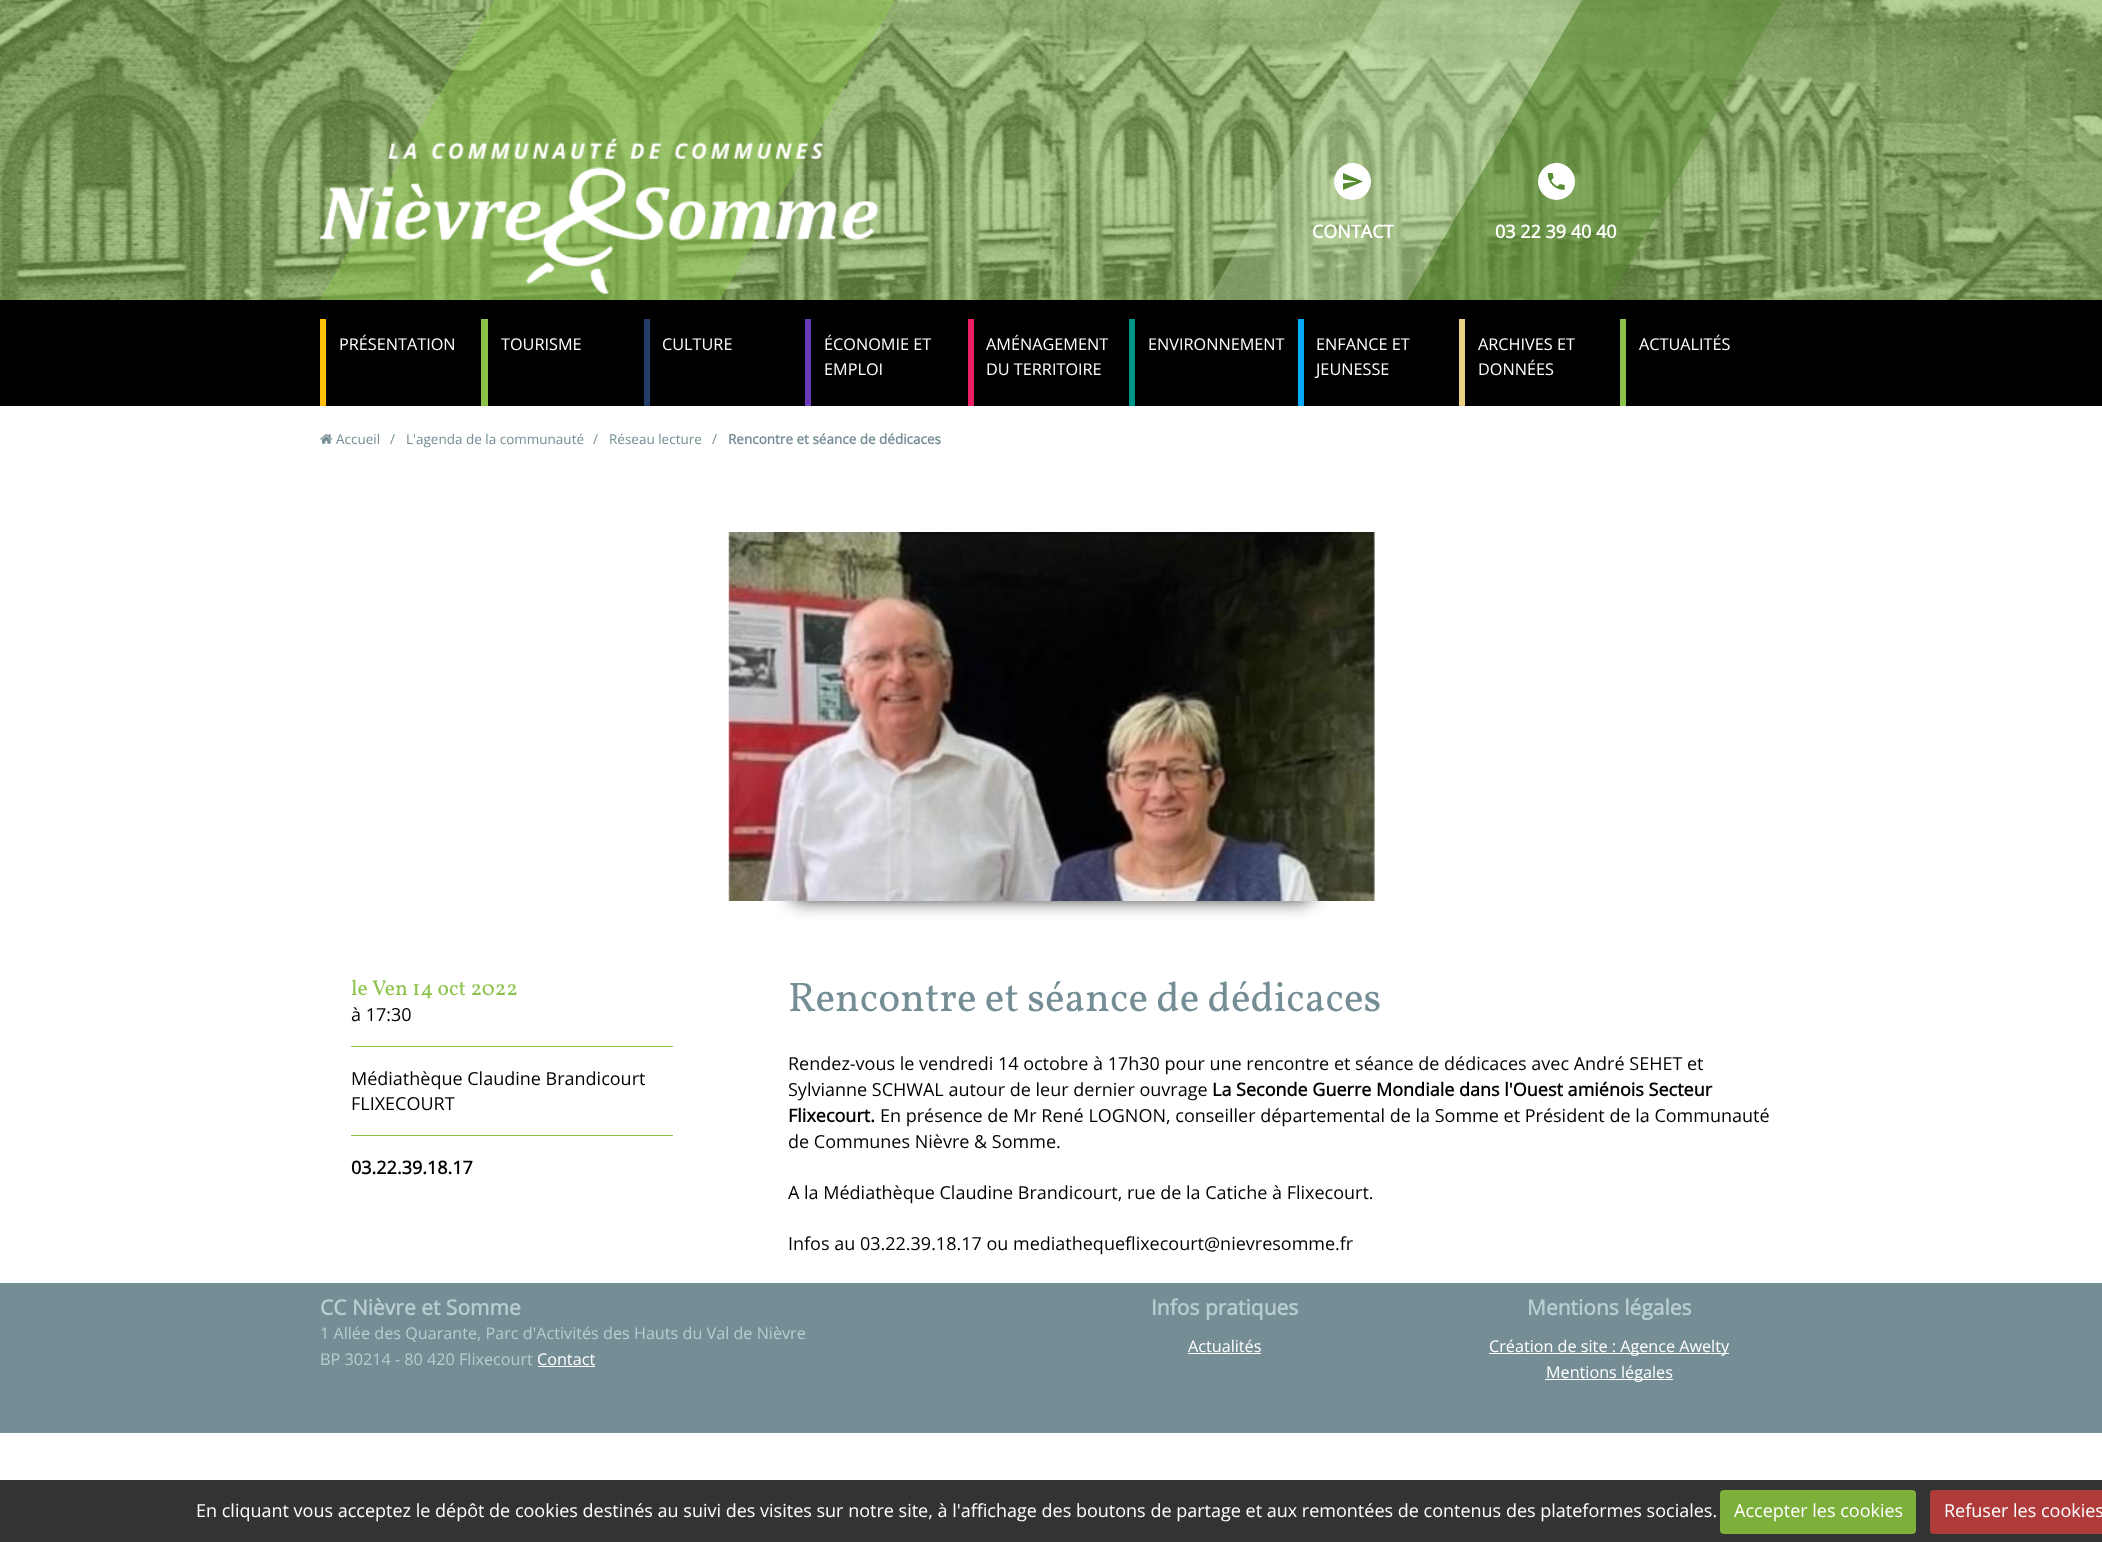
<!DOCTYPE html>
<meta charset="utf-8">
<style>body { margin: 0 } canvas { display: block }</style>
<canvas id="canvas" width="2102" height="1542"></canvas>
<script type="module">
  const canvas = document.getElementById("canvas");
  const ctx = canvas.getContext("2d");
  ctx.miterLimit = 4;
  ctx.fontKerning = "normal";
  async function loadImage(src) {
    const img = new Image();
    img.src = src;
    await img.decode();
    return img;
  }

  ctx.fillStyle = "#ffffff";
  ctx.fillRect(0, 0, 2102, 1542);
  ctx.drawImage(await loadImage("img1.png"), 0, 0, 2102, 300);
  ctx.fillStyle = "rgba(139, 195, 74, 0.5)";
  ctx.beginPath();
  ctx.moveTo(720, 300);
  ctx.lineTo(320, 300);
  ctx.lineTo(495, 0);
  ctx.lineTo(895, 0);
  ctx.closePath();
  ctx.fill();
  ctx.fillStyle = "rgba(220, 237, 200, 0.3)";
  ctx.beginPath();
  ctx.moveTo(1408, 300);
  ctx.lineTo(1208, 300);
  ctx.lineTo(1382, 0);
  ctx.lineTo(1582, 0);
  ctx.closePath();
  ctx.fill();
  ctx.fillStyle = "rgba(85, 139, 47, 0.5)";
  ctx.beginPath();
  ctx.moveTo(1608, 300);
  ctx.lineTo(1408, 300);
  ctx.lineTo(1582, 0);
  ctx.lineTo(1782, 0);
  ctx.closePath();
  ctx.fill();
  ctx.drawImage(await loadImage("img2.png"), 320, 138, 558, 156);
  ctx.fillStyle = "#ffffff";
  ctx.beginPath();
  ctx.arc(1352.5, 181.5, 18.5, 0, Math.PI * 2);
  ctx.fill();
  ctx.fillStyle = "#558b2f";
  ctx.beginPath();
  ctx.moveTo(1343, 190);
  ctx.lineTo(1363, 181.5);
  ctx.lineTo(1343, 173);
  ctx.lineTo(1343, 179.5);
  ctx.lineTo(1357, 181.5);
  ctx.lineTo(1343, 183.5);
  ctx.closePath();
  ctx.fill();
  ctx.font = "bold 18px Open Sans";
  ctx.fillStyle = "#ffffff";
  ctx.fillText("CONTACT", 1312, 238);
  ctx.beginPath();
  ctx.arc(1556.5, 181.5, 18.5, 0, Math.PI * 2);
  ctx.fill();
  ctx.drawImage(await loadImage("img3.png"), 1547, 173, 18, 17);
  ctx.fillText("03 22 39 40 40", 1495, 238);
  ctx.fillStyle = "#000000";
  ctx.fillRect(0, 300, 2102, 106);
  ctx.fillStyle = "#ffc107";
  ctx.fillRect(320, 319, 6, 87);
  ctx.font = "16.25px Open Sans";
  ctx.fillStyle = "#ffffff";
  ctx.fillText("PRÉSENTATION", 339, 350);
  ctx.fillStyle = "#8bc34a";
  ctx.fillRect(481, 319, 7, 87);
  ctx.fillStyle = "#ffffff";
  ctx.fillText("TOURISME", 501, 350);
  ctx.fillStyle = "#233e66";
  ctx.fillRect(644, 319, 6, 87);
  ctx.fillStyle = "#ffffff";
  ctx.fillText("CULTURE", 662, 350);
  ctx.fillStyle = "#673ab7";
  ctx.fillRect(805, 319, 6, 87);
  ctx.fillStyle = "#ffffff";
  ctx.fillText("ÉCONOMIE ET", 824, 350);
  ctx.fillText("EMPLOI", 824, 375);
  ctx.fillStyle = "#e91e63";
  ctx.fillRect(968, 319, 6, 87);
  ctx.fillStyle = "#ffffff";
  ctx.fillText("AMÉNAGEMENT", 986, 350);
  ctx.fillText("DU TERRITOIRE", 986, 375);
  ctx.fillStyle = "#009688";
  ctx.fillRect(1129, 319, 6, 87);
  ctx.fillStyle = "#ffffff";
  ctx.fillText("ENVIRONNEMENT", 1148, 350);
  ctx.fillStyle = "#03a9f4";
  ctx.fillRect(1298, 319, 6, 87);
  ctx.fillStyle = "#ffffff";
  ctx.fillText("ENFANCE ET", 1316, 350);
  ctx.fillText("JEUNESSE", 1316, 375);
  ctx.fillStyle = "#ead083";
  ctx.fillRect(1459, 319, 6, 87);
  ctx.fillStyle = "#ffffff";
  ctx.fillText("ARCHIVES ET", 1478, 350);
  ctx.fillText("DONNÉES", 1478, 375);
  ctx.fillStyle = "#8bc34a";
  ctx.fillRect(1620, 319, 6, 87);
  ctx.fillStyle = "#ffffff";
  ctx.fillText("ACTUALITÉS", 1639, 350);
  ctx.drawImage(await loadImage("img4.png"), 320, 434, 13, 10);
  ctx.font = "13.5px Open Sans";
  ctx.fillStyle = "#758d94";
  ctx.fillText("Accueil", 336, 444);
  ctx.fillText("/", 390, 444);
  ctx.fillText("L'agenda de la communauté", 406, 444);
  ctx.fillText("/", 593, 444);
  ctx.fillText("Réseau lecture", 609, 444);
  ctx.fillText("/", 712, 444);
  ctx.font = "bold 13.5px Open Sans";
  ctx.fillText("Rencontre et séance de dédicaces", 728, 444);
  ctx.fillStyle = "rgba(0, 0, 0, 0.9)";
  ctx.filter = "blur(9.5px)";
  ctx.beginPath();
  ctx.rect(793, 836, 517, 63);
  ctx.fill();
  ctx.filter = "none";
  ctx.drawImage(await loadImage("img5.png"), 728, 532, 647, 369);
  ctx.fillStyle = "#8bc34a";
  ctx.fillRect(351, 1046, 322, 1);
  ctx.font = "21.5px Vollkorn";
  ctx.fillText("le", 351, 995);
  ctx.fillText("Ven 14 oct 2022", 372, 995);
  ctx.font = "18px Open Sans";
  ctx.fillStyle = "#000000";
  ctx.fillText("à 17:30", 351, 1021);
  ctx.fillStyle = "#8bc34a";
  ctx.fillRect(351, 1135, 322, 1);
  ctx.fillStyle = "#000000";
  ctx.fillText("Médiathèque Claudine Brandicourt", 351, 1085);
  ctx.fillText("FLIXECOURT", 351, 1110);
  ctx.font = "bold 18px Open Sans";
  ctx.fillText("03.22.39.18.17", 351, 1174);
  ctx.font = "41.4px Vollkorn";
  ctx.fillStyle = "#758d94";
  ctx.fillText("Rencontre et séance de dédicaces", 788, 1011);
  ctx.font = "18px Open Sans";
  ctx.fillStyle = "#000000";
  ctx.fillText("Rendez-vous le vendredi 14 octobre à 17h30 pour une rencontre et séance de dédicaces avec André SEHET et", 788, 1070);
  ctx.fillText("Sylvianne SCHWAL autour de leur dernier ouvrage", 788, 1096);
  ctx.font = "bold 18px Open Sans";
  ctx.fillText("La Seconde Guerre Mondiale dans l'Ouest amiénois Secteur", 1212, 1096);
  ctx.fillText("Flixecourt.", 788, 1122);
  ctx.font = "18px Open Sans";
  ctx.fillText("En présence de Mr René LOGNON, conseiller départemental de la Somme et Président de la Communauté", 880, 1122);
  ctx.fillText("de Communes Nièvre & Somme.", 788, 1148);
  ctx.fillText("A la Médiathèque Claudine Brandicourt, rue de la Catiche à Flixecourt.", 788, 1199);
  ctx.fillText("Infos au 03.22.39.18.17 ou mediathequeflixecourt@nievresomme.fr", 788, 1250);
  ctx.fillStyle = "#758d94";
  ctx.fillRect(0, 1283, 2102, 150);
  ctx.font = "bold 21px Open Sans";
  ctx.fillStyle = "#b7cdd4";
  ctx.fillText("CC Nièvre et Somme", 320, 1315);
  ctx.font = "16.2px Open Sans";
  ctx.fillText("1 Allée des Quarante, Parc d'Activités des Hauts du Val de Nièvre", 320, 1339);
  ctx.fillText("BP 30214 - 80 420 Flixecourt", 320, 1365);
  ctx.fillStyle = "#ffffff";
  ctx.fillText("Contact", 537, 1365);
  ctx.fillRect(538, 1366, 57, 1);
  ctx.font = "bold 21px Open Sans";
  ctx.fillStyle = "#b7cdd4";
  ctx.fillText("Infos pratiques", 1151, 1315);
  ctx.font = "16.2px Open Sans";
  ctx.fillStyle = "#ffffff";
  ctx.fillText("Actualités", 1188, 1352);
  ctx.fillRect(1188, 1353, 73, 1);
  ctx.font = "bold 21px Open Sans";
  ctx.fillStyle = "#b7cdd4";
  ctx.fillText("Mentions légales", 1527, 1315);
  ctx.fillStyle = "#ffffff";
  ctx.fillRect(1489, 1353, 240, 1);
  ctx.font = "16.2px Open Sans";
  ctx.fillText("Création de site : Agence Awelty", 1489, 1352);
  ctx.fillRect(1545, 1379, 128, 1);
  ctx.fillText("Mentions légales", 1546, 1378);
  ctx.fillStyle = "#333333";
  ctx.fillRect(0, 1480, 2102, 62);
  ctx.font = "18px Open Sans";
  ctx.fillStyle = "#ffffff";
  ctx.fillText("En cliquant vous acceptez le dépôt de cookies destinés au suivi des visites sur notre site, à l'affichage des boutons de partage et aux remontées de contenus des plateformes sociales.", 196, 1517);
  ctx.fillStyle = "#7daf3b";
  ctx.beginPath();
  ctx.roundRect(1720, 1490, 196, 44, 4);
  ctx.fill();
  ctx.fillStyle = "#ffffff";
  ctx.fillText("Accepter les cookies", 1734, 1517);
  ctx.fillStyle = "#af3b3b";
  ctx.beginPath();
  ctx.roundRect(1930, 1490, 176, 44, 4);
  ctx.fill();
  ctx.fillStyle = "#ffffff";
  ctx.fillText("Refuser les cookies", 1944, 1517);
</script>
